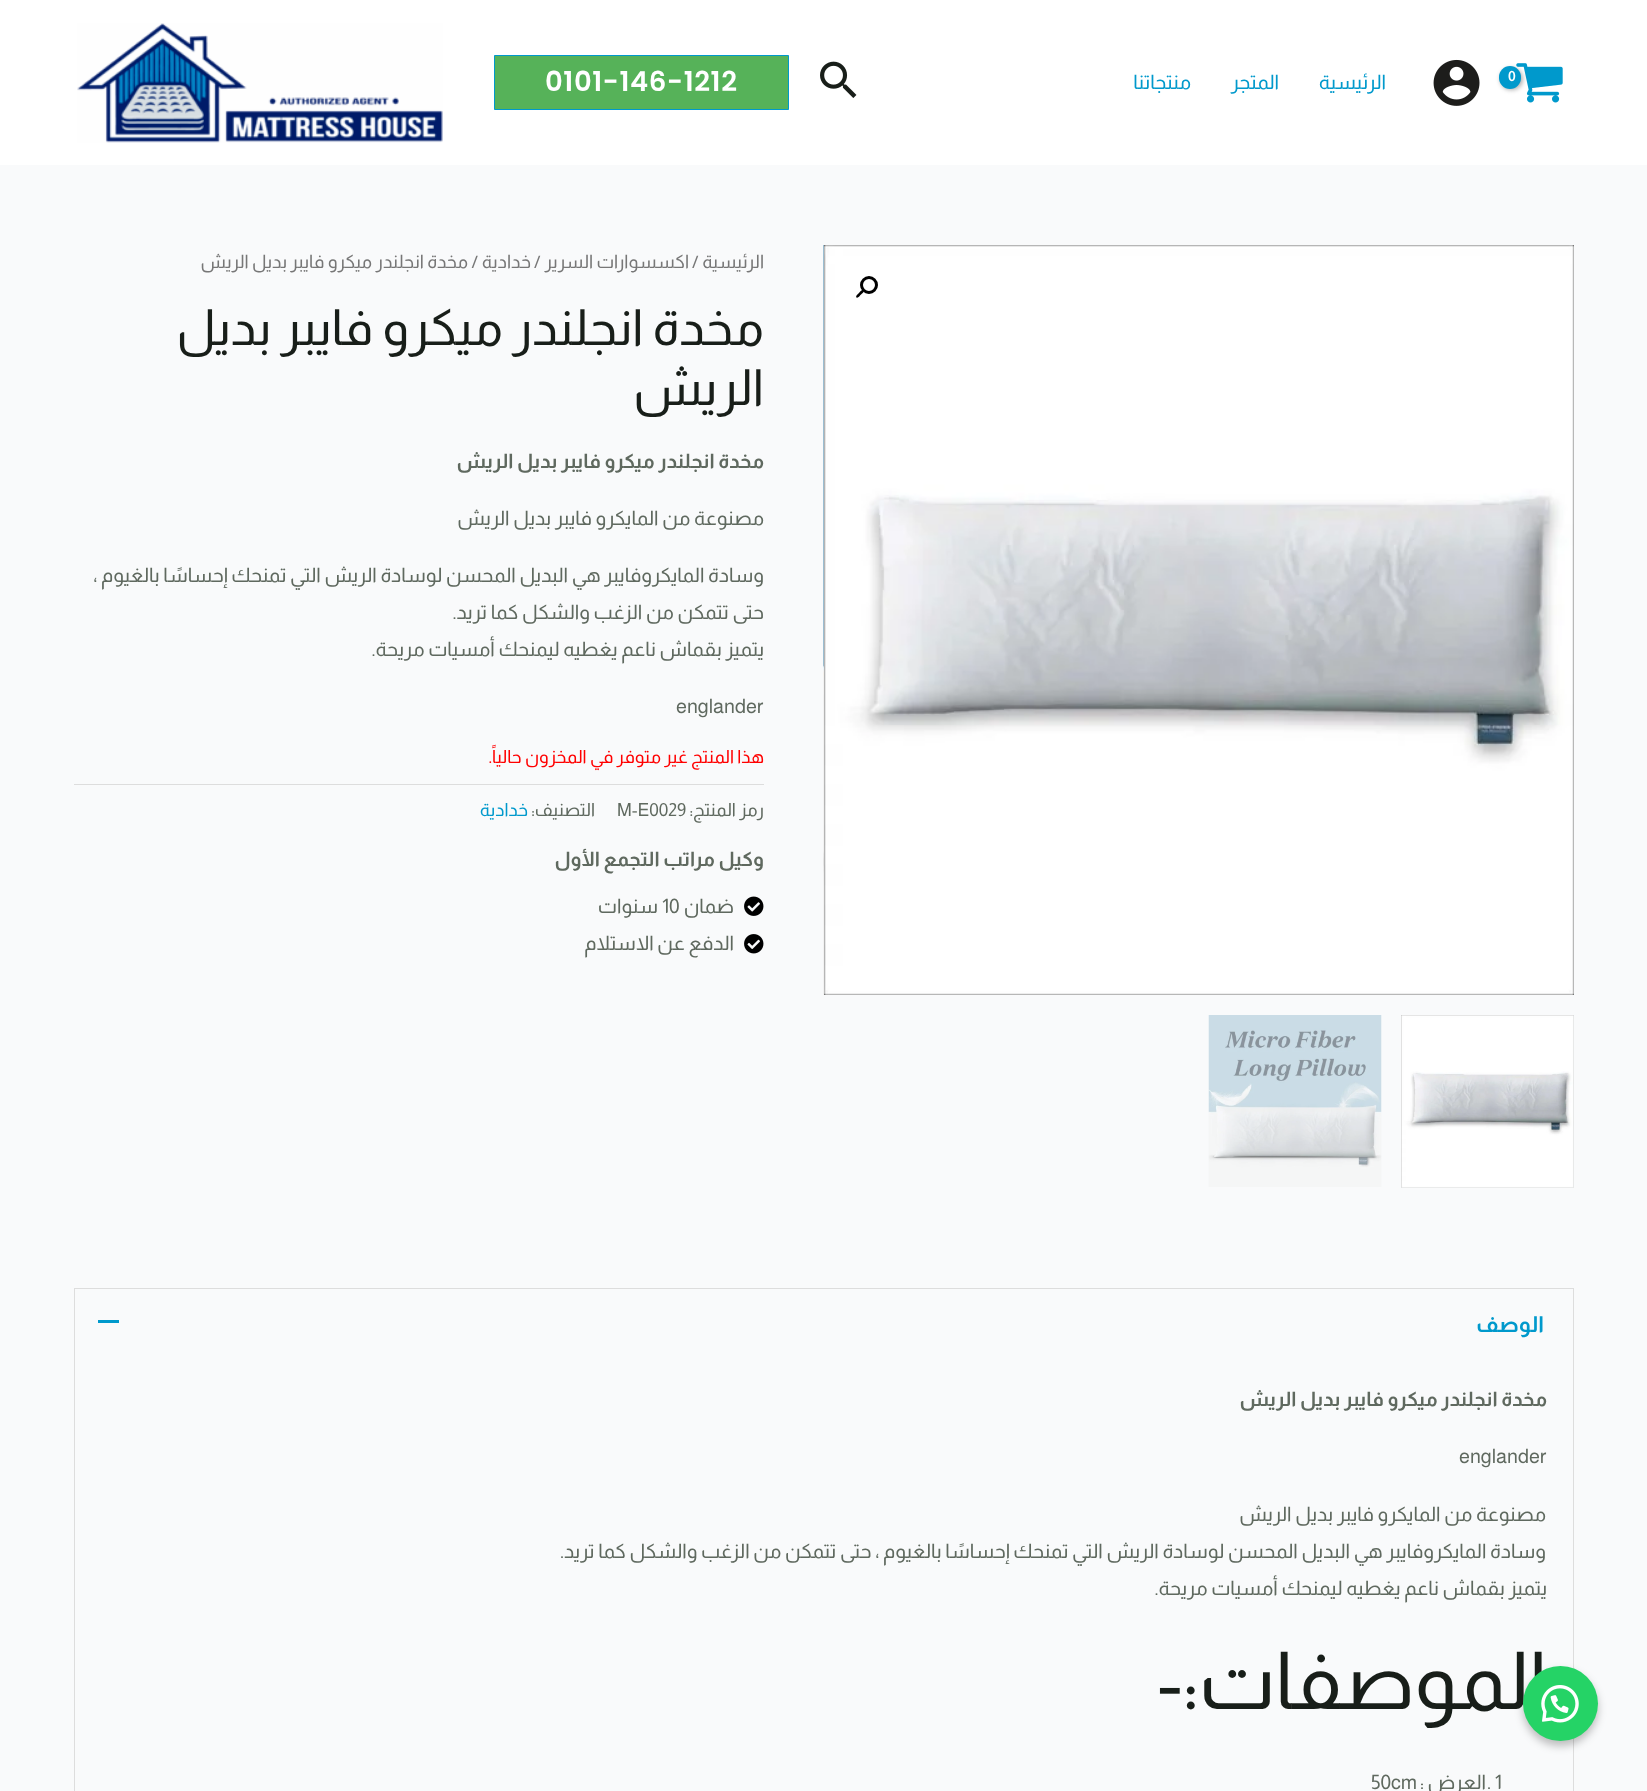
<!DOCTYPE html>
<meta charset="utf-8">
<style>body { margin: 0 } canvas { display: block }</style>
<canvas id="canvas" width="1647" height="1791"></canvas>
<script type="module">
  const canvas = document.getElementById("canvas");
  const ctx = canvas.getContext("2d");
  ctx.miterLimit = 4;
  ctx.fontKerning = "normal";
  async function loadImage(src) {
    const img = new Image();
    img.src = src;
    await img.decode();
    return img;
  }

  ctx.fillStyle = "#f9fafb";
  ctx.fillRect(0, 0, 1647, 1791);
  ctx.fillStyle = "#dddddd";
  ctx.fillRect(1573, 1361, 1, 430);
  ctx.fillStyle = "rgba(0, 0, 0, 0.25)";
  ctx.filter = "blur(4.5px)";
  ctx.beginPath();
  ctx.roundRect(1523, 1671, 75, 75, 37.5);
  ctx.fill();
  ctx.filter = "none";
  ctx.direction = "rtl";
  ctx.font = "80px Almarai";
  ctx.fillStyle = "#181e19";
  ctx.fillText("الموصفات:-", 1547, 1709);
  ctx.fillStyle = "#25d366";
  ctx.beginPath();
  ctx.arc(1560.5, 1703.5, 37.5, 0, Math.PI * 2);
  ctx.fill();
  ctx.drawImage(await loadImage("img1.png"), 1541, 1685, 38, 38);
  ctx.fillStyle = "#ffffff";
  ctx.fillRect(0, 0, 1647, 165);
  ctx.drawImage(await loadImage("img2.png"), 1516, 63, 47, 40);
  ctx.fillStyle = "rgba(0, 0, 0, 0.3)";
  ctx.filter = "blur(2px)";
  ctx.beginPath();
  ctx.roundRect(1500, 68, 23, 22, 11);
  ctx.fill();
  ctx.filter = "none";
  ctx.fillStyle = "#0099cc";
  ctx.beginPath();
  ctx.roundRect(1499, 66, 22, 23, 11);
  ctx.fill();
  ctx.letterSpacing = "-1px";
  ctx.direction = "ltr";
  ctx.font = "bold 14px Almarai";
  ctx.fillStyle = "#ffffff";
  ctx.fillText("0", 1508, 81);
  ctx.drawImage(await loadImage("img3.png"), 1433, 59, 47, 47);
  ctx.letterSpacing = "0px";
  ctx.direction = "rtl";
  ctx.font = "20px Almarai";
  ctx.fillStyle = "#0099cc";
  ctx.fillText("الرئيسية", 1386, 89);
  ctx.fillText("المتجر", 1279, 89);
  ctx.fillText("منتجاتنا", 1191, 89);
  ctx.drawImage(await loadImage("img4.png"), 820, 61, 37, 37);
  ctx.fillStyle = "#56b259";
  ctx.beginPath();
  ctx.rect(494.5, 55.5, 294, 54);
  ctx.fill();
  ctx.strokeStyle = "#0099cc";
  ctx.stroke();
  ctx.letterSpacing = "0.6px";
  ctx.direction = "ltr";
  ctx.font = "600 27.5px Poppins";
  ctx.fillStyle = "#ffffff";
  ctx.fillText("0101-146-1212", 545, 91);
  ctx.drawImage(await loadImage("img5.png"), 77, 23, 366, 120);
  ctx.drawImage(await loadImage("img6.png"), 824, 245, 750, 750);
  ctx.drawImage(await loadImage("img7.png"), 823, 245, 1, 750);
  ctx.beginPath();
  ctx.arc(869, 285, 7.5, 0, Math.PI * 2);
  ctx.strokeStyle = "#000000";
  ctx.lineWidth = 3;
  ctx.stroke();
  ctx.fillStyle = "#000000";
  ctx.beginPath();
  ctx.moveTo(863.5, 290);
  ctx.bezierCurveTo(865, 291.5, 861.5, 294, 861, 294.5);
  ctx.bezierCurveTo(860, 295.5, 858, 298.5, 856.5, 297.5);
  ctx.bezierCurveTo(855, 296, 858.5, 293.5, 859, 293);
  ctx.bezierCurveTo(860, 292, 862, 289, 863.5, 290);
  ctx.closePath();
  ctx.fill();
  ctx.drawImage(await loadImage("img8.png"), 1401, 1015, 173, 173);
  ctx.drawImage(await loadImage("img9.png"), 1208, 1015, 174, 172);
  ctx.letterSpacing = "0px";
  ctx.direction = "rtl";
  ctx.font = "18.4px Almarai";
  ctx.fillStyle = "#777777";
  ctx.fillText("الرئيسية", 764, 268);
  ctx.direction = "ltr";
  ctx.fillText("/", 692, 268);
  ctx.direction = "rtl";
  ctx.fillText("اكسسوارات السرير", 689, 268);
  ctx.direction = "ltr";
  ctx.fillText("/", 534, 268);
  ctx.direction = "rtl";
  ctx.fillText("خدادية", 531, 268);
  ctx.fillText("/ مخدة انجلندر ميكرو فايبر بديل الريش", 478, 268);
  ctx.font = "50px Almarai";
  ctx.fillStyle = "#181e19";
  ctx.fillText("مخدة انجلندر ميكرو فايبر بديل", 764, 345);
  ctx.fillText("الريش", 764, 405);
  ctx.font = "bold 20px Almarai";
  ctx.fillStyle = "#5f695f";
  ctx.fillText("مخدة انجلندر ميكرو فايبر بديل الريش", 764, 468);
  ctx.font = "20px Almarai";
  ctx.fillText("مصنوعة من المايكرو فايبر بديل الريش", 764, 525);
  ctx.fillText("وسادة المايكروفايبر هي البديل المحسن لوسادة الريش التي تمنحك إحساسًا بالغيوم ،", 764, 582);
  ctx.fillText("حتى تتمكن من الزغب والشكل كما تريد.", 764, 619);
  ctx.fillText("يتميز بقماش ناعم يغطيه ليمنحك أمسيات مريحة.", 764, 656);
  ctx.direction = "ltr";
  ctx.fillText("englander", 676, 713);
  ctx.direction = "rtl";
  ctx.font = "18px Almarai";
  ctx.fillStyle = "#ff0000";
  ctx.fillText("هذا المنتج غير متوفر في المخزون حالياً.", 764, 763);
  ctx.fillStyle = "#dddddd";
  ctx.fillRect(74, 784, 690, 1);
  ctx.fillStyle = "#5f695f";
  ctx.fillText("رمز المنتج:", 764, 816);
  ctx.direction = "ltr";
  ctx.fillText("M-E0029", 617, 816);
  ctx.direction = "rtl";
  ctx.fillText("التصنيف:", 595, 816);
  ctx.fillStyle = "#0099cc";
  ctx.fillText("خدادية", 528, 816);
  ctx.font = "bold 20px Almarai";
  ctx.fillStyle = "#5f695f";
  ctx.fillText("وكيل مراتب التجمع الأول", 764, 866);
  ctx.drawImage(await loadImage("img10.png"), 744, 896, 20, 20);
  ctx.font = "20px Almarai";
  ctx.fillText("ضمان", 734, 913);
  ctx.direction = "ltr";
  ctx.fillText("10", 662, 913);
  ctx.direction = "rtl";
  ctx.fillText("سنوات", 658, 913);
  ctx.drawImage(await loadImage("img11.png"), 744, 934, 20, 20);
  ctx.fillText("الدفع عن الاستلام", 734, 950);
  ctx.fillStyle = "#dddddd";
  ctx.fillRect(74, 1288, 1500, 1);
  ctx.fillRect(1573, 1288, 1, 73);
  ctx.fillRect(74, 1288, 1, 73);
  ctx.font = "bold 22px Almarai";
  ctx.fillStyle = "#0099cc";
  ctx.fillText("الوصف", 1544, 1332);
  ctx.fillRect(98, 1320, 21, 3);
  ctx.fillStyle = "#dddddd";
  ctx.fillRect(74, 1361, 1, 430);
  ctx.font = "bold 20px Almarai";
  ctx.fillStyle = "#5f695f";
  ctx.fillText("مخدة انجلندر ميكرو فايبر بديل الريش", 1547, 1406);
  ctx.direction = "ltr";
  ctx.font = "20px Almarai";
  ctx.fillText("englander", 1459, 1463);
  ctx.direction = "rtl";
  ctx.fillText("مصنوعة من المايكرو فايبر بديل الريش", 1546, 1521);
  ctx.fillText("وسادة المايكروفايبر هي البديل المحسن لوسادة الريش التي تمنحك إحساسًا بالغيوم ، حتى تتمكن من الزغب والشكل كما تريد.", 1546, 1558);
  ctx.fillText("يتميز بقماش ناعم يغطيه ليمنحك أمسيات مريحة.", 1547, 1595);
  ctx.direction = "ltr";
  ctx.fillText(". 1", 1487, 1789);
  ctx.direction = "rtl";
  ctx.fillText("العرض :", 1486, 1789);
  ctx.direction = "ltr";
  ctx.fillText("50cm", 1371, 1789);
</script>
